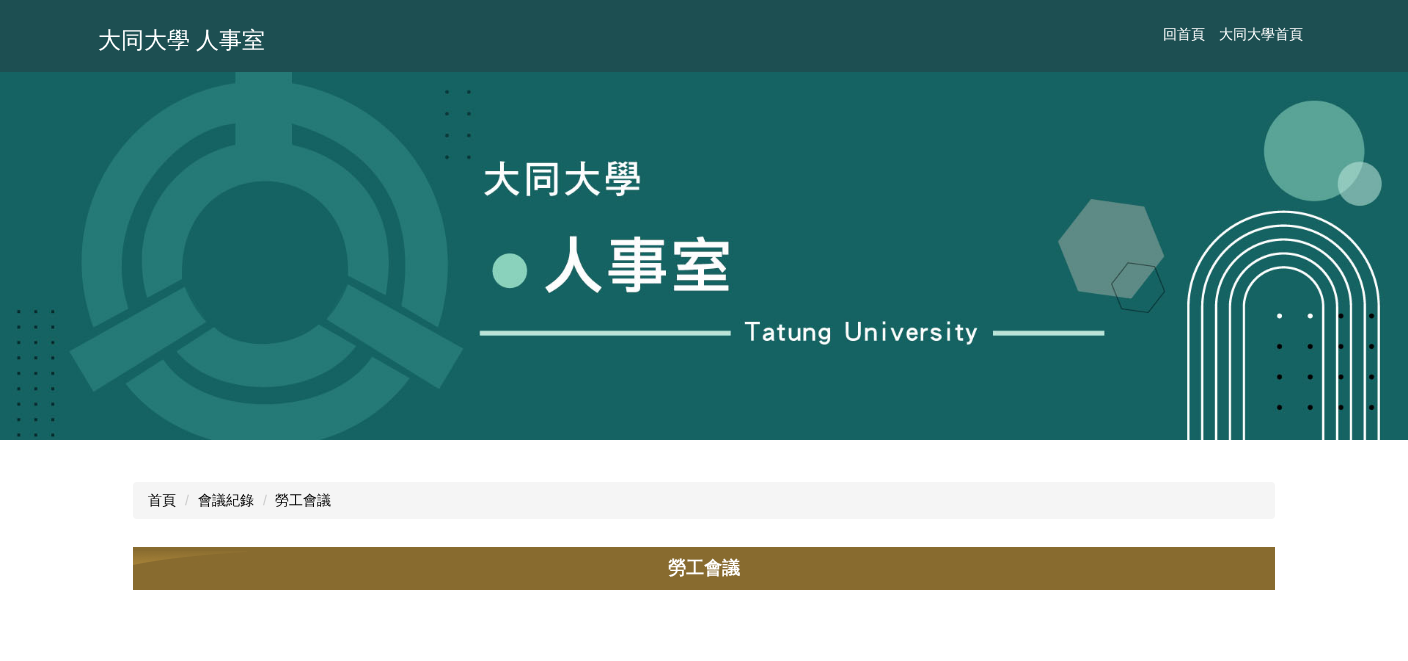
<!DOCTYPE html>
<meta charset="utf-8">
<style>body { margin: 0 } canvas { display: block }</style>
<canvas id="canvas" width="1408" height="661"></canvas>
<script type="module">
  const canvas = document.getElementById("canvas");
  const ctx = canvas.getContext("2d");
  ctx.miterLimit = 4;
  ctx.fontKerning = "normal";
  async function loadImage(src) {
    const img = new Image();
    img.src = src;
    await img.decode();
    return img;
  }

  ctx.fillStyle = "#ffffff";
  ctx.fillRect(0, 0, 1408, 661);
  ctx.fillStyle = "#1d4f52";
  ctx.fillRect(0, 0, 1408, 72);
  ctx.wordSpacing = "-1px";
  ctx.font = "500 23px WenQuanYi Zen Hei";
  ctx.fillStyle = "#ffffff";
  ctx.fillText("大同大學 人事室", 98, 48);
  ctx.wordSpacing = "0px";
  ctx.font = "500 14px WenQuanYi Zen Hei";
  ctx.fillText("回首頁", 1163, 39);
  ctx.fillText("大同大學首頁", 1219, 39);
  ctx.drawImage(await loadImage("img1.png"), 0, 72, 1408, 368);
  ctx.fillStyle = "#f5f5f5";
  ctx.beginPath();
  ctx.roundRect(133, 482, 1142, 37, 4);
  ctx.fill();
  ctx.fillStyle = "#000000";
  ctx.fillText("首頁", 148, 505);
  ctx.font = "14px Liberation Sans";
  ctx.fillStyle = "#cccccc";
  ctx.fillText("/", 185, 505);
  ctx.font = "500 14px WenQuanYi Zen Hei";
  ctx.fillStyle = "#000000";
  ctx.fillText("會議紀錄", 198, 505);
  ctx.font = "14px Liberation Sans";
  ctx.fillStyle = "#cccccc";
  ctx.fillText("/", 263, 505);
  ctx.font = "500 14px WenQuanYi Zen Hei";
  ctx.fillStyle = "#000000";
  ctx.fillText("勞工會議", 275, 505);
  ctx.fillStyle = "#886b2f";
  ctx.fillRect(133, 547, 1142, 43);
  ctx.drawImage(await loadImage("img2.png"), 133, 551, 114, 14);
  ctx.font = "bold 18px WenQuanYi Zen Hei";
  ctx.fillStyle = "#ffffff";
  ctx.fillText("勞工會議", 668, 574);
</script>
